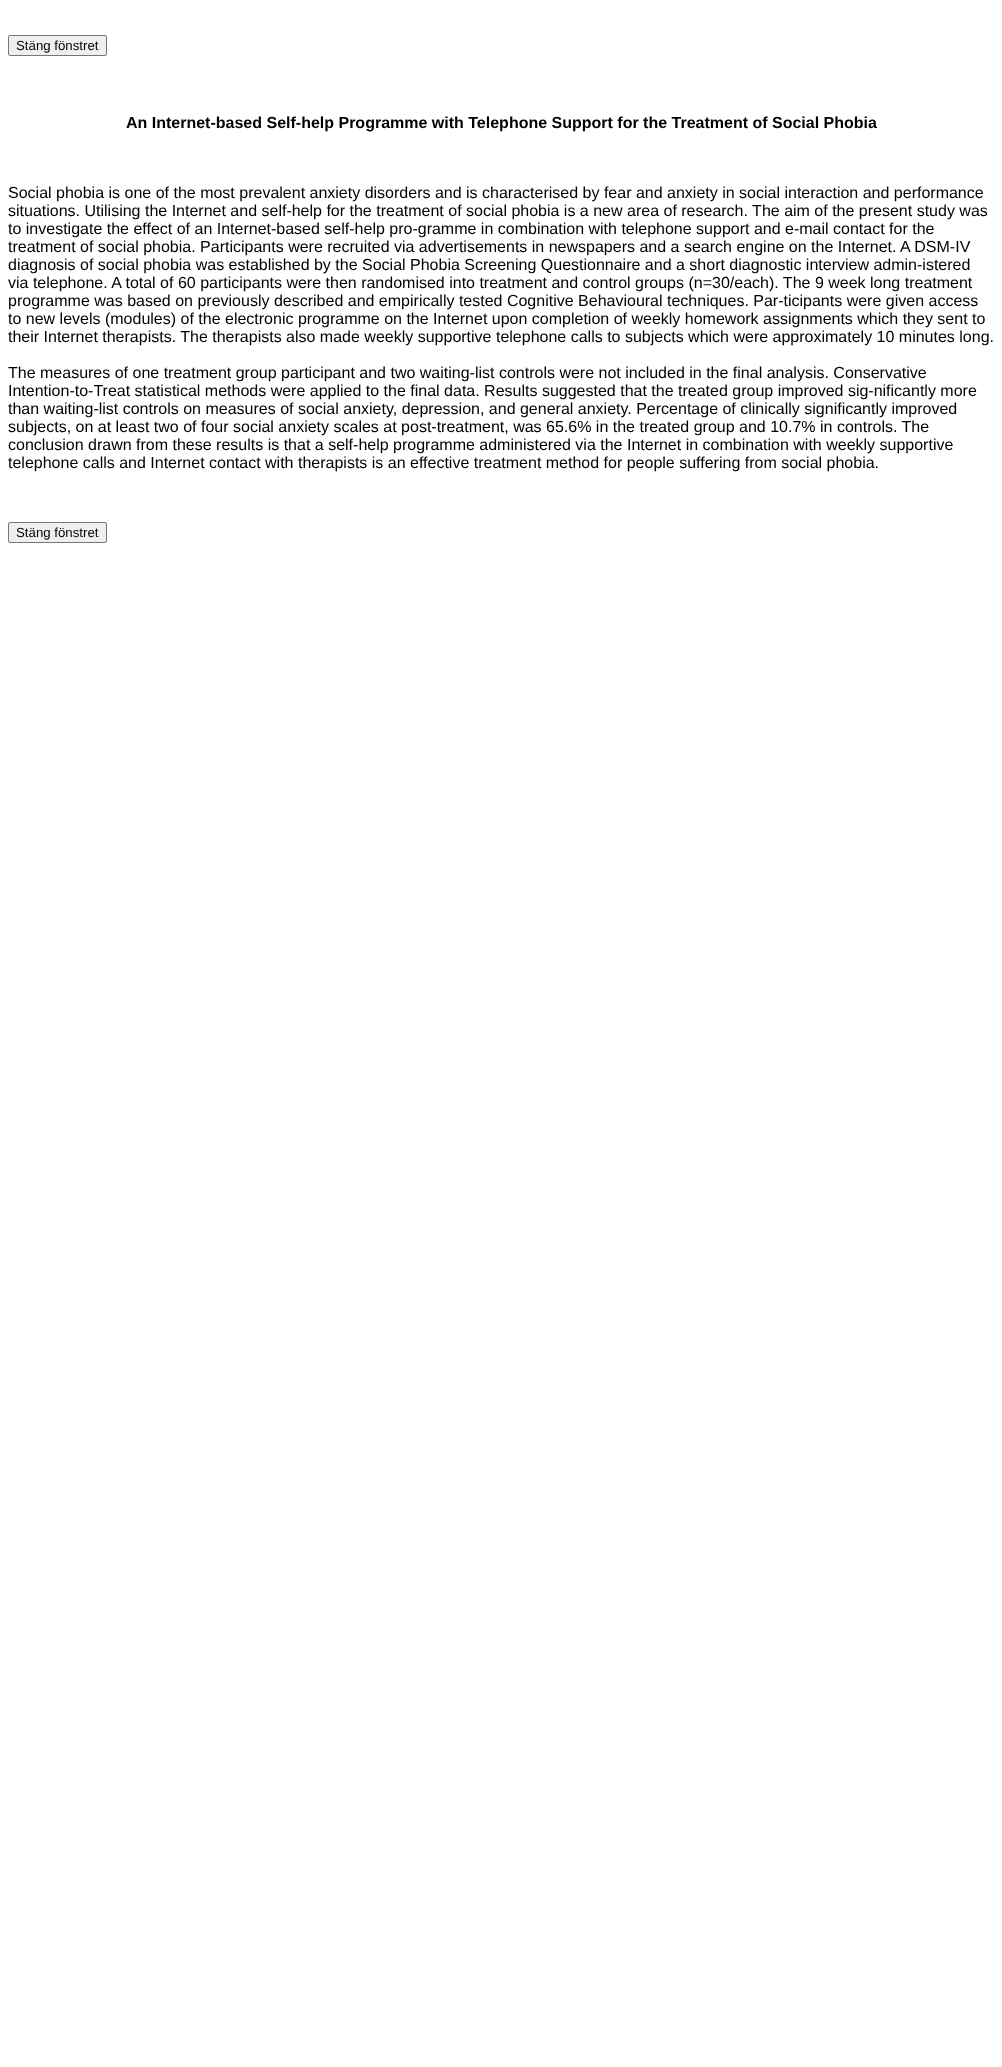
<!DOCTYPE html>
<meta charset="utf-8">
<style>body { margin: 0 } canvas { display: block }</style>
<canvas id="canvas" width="1002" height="2067"></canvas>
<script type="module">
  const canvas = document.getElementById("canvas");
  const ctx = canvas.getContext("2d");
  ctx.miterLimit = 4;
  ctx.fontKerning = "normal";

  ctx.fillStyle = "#ffffff";
  ctx.fillRect(0, 0, 1002, 2067);
  ctx.fillStyle = "#efefef";
  ctx.beginPath();
  ctx.roundRect(8.5, 35.5, 98, 20, 1.5);
  ctx.fill();
  ctx.strokeStyle = "#767676";
  ctx.stroke();
  ctx.font = "13.25px Liberation Sans";
  ctx.fillStyle = "#000000";
  ctx.fillText("Stäng fönstret", 16, 50);
  ctx.font = "bold 16px Liberation Sans";
  ctx.fillText("An Internet-based Self-help Programme with Telephone Support for the Treatment of Social Phobia", 126, 128);
  ctx.font = "16px Liberation Sans";
  ctx.fillText("Social phobia is one of the most prevalent anxiety disorders and is characterised by fear and anxiety in social interaction and performance", 8, 198);
  ctx.fillText("situations. Utilising the Internet and self-help for the treatment of social phobia is a new area of research. The aim of the present study was", 8, 216);
  ctx.fillText("to investigate the effect of an Internet-based self-help pro-gramme in combination with telephone support and e-mail contact for the", 8, 234);
  ctx.fillText("treatment of social phobia. Participants were recruited via advertisements in newspapers and a search engine on the Internet. A DSM-IV", 8, 252);
  ctx.fillText("diagnosis of social phobia was established by the Social Phobia Screening Questionnaire and a short diagnostic interview admin-istered", 8, 270);
  ctx.fillText("via telephone. A total of 60 participants were then randomised into treatment and control groups (n=30/each). The 9 week long treatment", 8, 288);
  ctx.fillText("programme was based on previously described and empirically tested Cognitive Behavioural techniques. Par-ticipants were given access", 8, 306);
  ctx.fillText("to new levels (modules) of the electronic programme on the Internet upon completion of weekly homework assignments which they sent to", 8, 324);
  ctx.fillText("their Internet therapists. The therapists also made weekly supportive telephone calls to subjects which were approximately 10 minutes long.", 8, 342);
  ctx.fillText("The measures of one treatment group participant and two waiting-list controls were not included in the final analysis. Conservative", 8, 378);
  ctx.fillText("Intention-to-Treat statistical methods were applied to the final data. Results suggested that the treated group improved sig-nificantly more", 8, 396);
  ctx.fillText("than waiting-list controls on measures of social anxiety, depression, and general anxiety. Percentage of clinically significantly improved", 8, 414);
  ctx.fillText("subjects, on at least two of four social anxiety scales at post-treatment, was 65.6% in the treated group and 10.7% in controls. The", 8, 432);
  ctx.fillText("conclusion drawn from these results is that a self-help programme administered via the Internet in combination with weekly supportive", 8, 450);
  ctx.fillText("telephone calls and Internet contact with therapists is an effective treatment method for people suffering from social phobia.", 8, 468);
  ctx.fillStyle = "#efefef";
  ctx.beginPath();
  ctx.roundRect(8.5, 522.5, 98, 20, 1.5);
  ctx.fill();
  ctx.stroke();
  ctx.font = "13.25px Liberation Sans";
  ctx.fillStyle = "#000000";
  ctx.fillText("Stäng fönstret", 16, 537);
</script>
